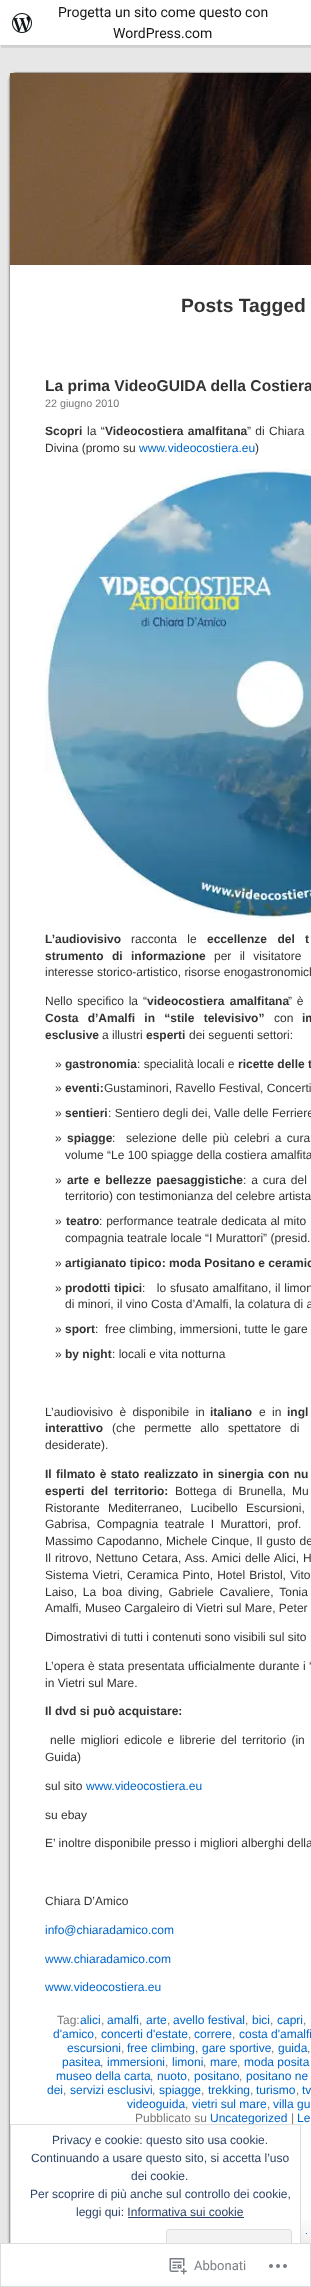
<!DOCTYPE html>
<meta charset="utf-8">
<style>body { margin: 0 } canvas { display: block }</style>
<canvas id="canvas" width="311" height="2287"></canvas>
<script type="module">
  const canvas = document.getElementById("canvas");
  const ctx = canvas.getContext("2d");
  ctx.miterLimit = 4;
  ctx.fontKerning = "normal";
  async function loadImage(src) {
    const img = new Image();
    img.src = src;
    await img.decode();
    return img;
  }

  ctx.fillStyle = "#e7e7e7";
  ctx.fillRect(0, 0, 311, 2287);
  ctx.fillStyle = "rgba(0, 0, 0, 0.05)";
  ctx.filter = "blur(1px)";
  ctx.beginPath();
  ctx.rect(0, 1, 311, 45);
  ctx.fill();
  ctx.filter = "none";
  ctx.fillStyle = "rgba(0, 0, 0, 0.08)";
  ctx.beginPath();
  ctx.moveTo(1, 45);
  ctx.lineTo(1, 48);
  ctx.lineTo(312, 48);
  ctx.lineTo(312, 3);
  ctx.lineTo(311, 3);
  ctx.lineTo(311, 45);
  ctx.closePath();
  ctx.fill();
  ctx.fillStyle = "#ffffff";
  ctx.fillRect(0, 0, 311, 45);
  ctx.drawImage(await loadImage("img1.png"), 12, 13, 20, 20);
  ctx.font = "14px Roboto";
  ctx.fillStyle = "#171717";
  ctx.fillText("Progetta un sito come questo con", 58, 17);
  ctx.fillText("WordPress.com", 113, 38);
  ctx.drawImage(await loadImage("img2.png"), 7, 265, 304, 1955);
  ctx.drawImage(await loadImage("img3.png"), 7, 65, 304, 200);
  ctx.drawImage(await loadImage("img4.png"), 10, 73, 301, 192);
  ctx.font = "bold 19.25px Liberation Sans";
  ctx.fillStyle = "#333333";
  ctx.fillText("Posts Tagged", 181, 312);
  ctx.font = "bold 15.6px Liberation Sans";
  ctx.fillText("La prima VideoGUIDA della Costiera", 45, 391);
  ctx.font = "10.75px Liberation Sans";
  ctx.fillStyle = "#777777";
  ctx.fillText("22 giugno 2010", 45, 407);
  ctx.font = "bold 12px Liberation Sans";
  ctx.fillStyle = "#333333";
  ctx.fillText("Scopri", 45, 435);
  ctx.wordSpacing = "1px";
  ctx.font = "12px Liberation Sans";
  ctx.fillText("la “", 87, 435);
  ctx.font = "bold 12px Liberation Sans";
  ctx.fillText("Videocostiera amalfitana", 105, 435);
  ctx.font = "12px Liberation Sans";
  ctx.fillText("” di Chiara", 247, 435);
  ctx.wordSpacing = "0px";
  ctx.fillText("Divina (promo su", 45, 452);
  ctx.fillStyle = "#0066cc";
  ctx.fillText("www.videocostiera.eu", 139, 452);
  ctx.fillStyle = "#333333";
  ctx.fillText(")", 255, 452);
  ctx.drawImage(await loadImage("img5.png"), 45, 469, 266, 450);
  ctx.font = "bold 12px Liberation Sans";
  ctx.fillText("L’audiovisivo", 45, 943);
  ctx.wordSpacing = "7px";
  ctx.font = "12px Liberation Sans";
  ctx.fillText("racconta le", 131, 943);
  ctx.font = "bold 12px Liberation Sans";
  ctx.fillText("eccellenze del t", 207, 943);
  ctx.wordSpacing = "5px";
  ctx.fillText("strumento di informazione", 45, 960);
  ctx.font = "12px Liberation Sans";
  ctx.fillText("per il visitatore", 214, 960);
  ctx.wordSpacing = "0px";
  ctx.fillText("interesse storico-artistico, risorse enogastronomich", 45, 976);
  ctx.wordSpacing = "1.5px";
  ctx.fillText("Nello specifico la “", 45, 1005);
  ctx.wordSpacing = "2px";
  ctx.font = "bold 12px Liberation Sans";
  ctx.fillText("videocostiera amalfitana", 147, 1005);
  ctx.wordSpacing = "1.5px";
  ctx.font = "12px Liberation Sans";
  ctx.fillText("” è", 288, 1005);
  ctx.wordSpacing = "6px";
  ctx.font = "bold 12px Liberation Sans";
  ctx.fillText("Costa d’Amalfi in “stile televisivo”", 45, 1022);
  ctx.wordSpacing = "0px";
  ctx.font = "12px Liberation Sans";
  ctx.fillText("con", 274, 1022);
  ctx.font = "bold 12px Liberation Sans";
  ctx.fillText("im", 302, 1022);
  ctx.fillText("esclusive", 45, 1039);
  ctx.font = "12px Liberation Sans";
  ctx.fillText("a illustri", 102, 1039);
  ctx.font = "bold 12px Liberation Sans";
  ctx.fillText("esperti", 146, 1039);
  ctx.font = "12px Liberation Sans";
  ctx.fillText("dei seguenti settori:", 189, 1039);
  ctx.fillText("»", 55, 1068);
  ctx.font = "bold 12px Liberation Sans";
  ctx.fillText("gastronomia", 65, 1068);
  ctx.font = "12px Liberation Sans";
  ctx.fillText(": specialità locali e", 137, 1068);
  ctx.font = "bold 12px Liberation Sans";
  ctx.fillText("ricette delle t", 238, 1068);
  ctx.font = "12px Liberation Sans";
  ctx.fillText("»", 55, 1092);
  ctx.font = "bold 12px Liberation Sans";
  ctx.fillText("eventi:", 65, 1092);
  ctx.font = "12px Liberation Sans";
  ctx.fillText("Gustaminori, Ravello Festival, Concerti", 104, 1092);
  ctx.fillText("»", 55, 1117);
  ctx.font = "bold 12px Liberation Sans";
  ctx.fillText("sentieri", 65, 1117);
  ctx.font = "12px Liberation Sans";
  ctx.fillText(": Sentiero degli dei, Valle delle Ferriere", 108, 1117);
  ctx.fillText("»", 55, 1142);
  ctx.font = "bold 12px Liberation Sans";
  ctx.fillText("spiagge", 67, 1142);
  ctx.wordSpacing = "2px";
  ctx.font = "12px Liberation Sans";
  ctx.fillText(":  selezione delle più celebri a cura", 112, 1142);
  ctx.wordSpacing = "0px";
  ctx.fillText("volume “Le 100 spiagge della costiera amalfita", 65, 1159);
  ctx.fillText("»", 55, 1184);
  ctx.wordSpacing = "1.5px";
  ctx.font = "bold 12px Liberation Sans";
  ctx.fillText("arte e bellezze paesaggistiche", 67, 1184);
  ctx.font = "12px Liberation Sans";
  ctx.fillText(": a cura del", 243, 1184);
  ctx.wordSpacing = "0px";
  ctx.fillText("territorio) con testimonianza del celebre artista", 65, 1200);
  ctx.fillText("»", 55, 1225);
  ctx.font = "bold 12px Liberation Sans";
  ctx.fillText("teatro", 66, 1225);
  ctx.wordSpacing = "0.5px";
  ctx.font = "12px Liberation Sans";
  ctx.fillText(": performance teatrale dedicata al mito", 99, 1225);
  ctx.wordSpacing = "0px";
  ctx.fillText("compagnia teatrale locale “I Murattori” (presid.", 65, 1242);
  ctx.fillText("»", 55, 1267);
  ctx.font = "bold 12px Liberation Sans";
  ctx.fillText("artigianato tipico: moda Positano e ceramic", 65, 1267);
  ctx.font = "12px Liberation Sans";
  ctx.fillText("»", 55, 1292);
  ctx.wordSpacing = "0.5px";
  ctx.font = "bold 12px Liberation Sans";
  ctx.fillText("prodotti tipici", 65, 1292);
  ctx.font = "12px Liberation Sans";
  ctx.fillText(":   lo sfusato amalfitano, il limon", 142, 1292);
  ctx.wordSpacing = "0px";
  ctx.fillText("di minori, il vino Costa d’Amalfi, la colatura di a", 65, 1308);
  ctx.fillText("»", 55, 1333);
  ctx.font = "bold 12px Liberation Sans";
  ctx.fillText("sport", 65, 1333);
  ctx.font = "12px Liberation Sans";
  ctx.fillText(":  free climbing, immersioni, tutte le gare", 95, 1333);
  ctx.fillText("»", 55, 1358);
  ctx.font = "bold 12px Liberation Sans";
  ctx.fillText("by night", 65, 1358);
  ctx.font = "12px Liberation Sans";
  ctx.fillText(": locali e vita notturna", 112, 1358);
  ctx.wordSpacing = "3px";
  ctx.fillText("L’audiovisivo è disponibile in", 45, 1416);
  ctx.wordSpacing = "0px";
  ctx.font = "bold 12px Liberation Sans";
  ctx.fillText("italiano", 210, 1416);
  ctx.wordSpacing = "3px";
  ctx.font = "12px Liberation Sans";
  ctx.fillText("e in", 259, 1416);
  ctx.wordSpacing = "0px";
  ctx.font = "bold 12px Liberation Sans";
  ctx.fillText("ingl", 287, 1416);
  ctx.fillText("interattivo", 45, 1432);
  ctx.wordSpacing = "5.5px";
  ctx.font = "12px Liberation Sans";
  ctx.fillText("(che permette allo spettatore di", 112, 1432);
  ctx.wordSpacing = "0px";
  ctx.fillText("desiderate).", 45, 1449);
  ctx.wordSpacing = "1px";
  ctx.font = "bold 12px Liberation Sans";
  ctx.fillText("Il filmato è stato realizzato in sinergia con nu", 45, 1478);
  ctx.wordSpacing = "3px";
  ctx.fillText("esperti del territorio:", 45, 1495);
  ctx.font = "12px Liberation Sans";
  ctx.fillText("Bottega di Brunella, Mu", 175, 1495);
  ctx.wordSpacing = "5px";
  ctx.fillText("Ristorante Mediterraneo, Lucibello Escursioni,", 45, 1512);
  ctx.wordSpacing = "3px";
  ctx.fillText("Gabrisa, Compagnia teatrale I Murattori, prof.", 45, 1528);
  ctx.wordSpacing = "0.5px";
  ctx.fillText("Massimo Capodanno, Michele Cinque, Il gusto de", 45, 1545);
  ctx.wordSpacing = "0.75px";
  ctx.fillText("Il ritrovo, Nettuno Cetara, Ass. Amici delle Alici, H", 45, 1562);
  ctx.fillText("Sistema Vietri, Ceramica Pinto, Hotel Bristol, Vito", 45, 1579);
  ctx.wordSpacing = "2.5px";
  ctx.fillText("Laiso, La boa diving, Gabriele Cavaliere, Tonia", 45, 1596);
  ctx.wordSpacing = "0px";
  ctx.fillText("Amalfi, Museo Cargaleiro di Vietri sul Mare, Peter", 45, 1612);
  ctx.fillText("Dimostrativi di tutti i contenuti sono visibili sul sito", 45, 1641);
  ctx.wordSpacing = "0.25px";
  ctx.fillText("L’opera è stata presentata ufficialmente durante i “", 45, 1670);
  ctx.wordSpacing = "0px";
  ctx.fillText("in Vietri sul Mare.", 45, 1687);
  ctx.font = "bold 12px Liberation Sans";
  ctx.fillText("Il dvd si può acquistare:", 45, 1715);
  ctx.wordSpacing = "2px";
  ctx.font = "12px Liberation Sans";
  ctx.fillText("nelle migliori edicole e librerie del territorio (in", 50, 1744);
  ctx.wordSpacing = "0px";
  ctx.fillText("Guida)", 45, 1761);
  ctx.fillText("sul sito", 45, 1790);
  ctx.fillStyle = "#0066cc";
  ctx.fillText("www.videocostiera.eu", 86, 1790);
  ctx.fillStyle = "#333333";
  ctx.fillText("su ebay", 45, 1819);
  ctx.fillText("E’ inoltre disponibile presso i migliori alberghi della", 45, 1847);
  ctx.fillText("Chiara D’Amico", 45, 1905);
  ctx.fillStyle = "#0066cc";
  ctx.fillText("info@chiaradamico.com", 45, 1934);
  ctx.fillText("www.chiaradamico.com", 45, 1963);
  ctx.fillText("www.videocostiera.eu", 45, 1991);
  ctx.fillStyle = "#777777";
  ctx.fillText("Tag:", 57, 2024);
  ctx.fillStyle = "#0066cc";
  ctx.fillText("alici", 80, 2024);
  ctx.fillStyle = "#777777";
  ctx.fillText(",", 101, 2024);
  ctx.fillStyle = "#0066cc";
  ctx.fillText("amalfi", 107, 2024);
  ctx.fillStyle = "#777777";
  ctx.fillText(",", 139, 2024);
  ctx.fillStyle = "#0066cc";
  ctx.fillText("arte", 146, 2024);
  ctx.fillStyle = "#777777";
  ctx.fillText(",", 167, 2024);
  ctx.fillStyle = "#0066cc";
  ctx.fillText("avello festival", 173, 2024);
  ctx.fillStyle = "#777777";
  ctx.fillText(",", 245, 2024);
  ctx.fillStyle = "#0066cc";
  ctx.fillText("bici", 252, 2024);
  ctx.fillStyle = "#777777";
  ctx.fillText(",", 270, 2024);
  ctx.fillStyle = "#0066cc";
  ctx.fillText("capri", 277, 2024);
  ctx.fillStyle = "#777777";
  ctx.fillText(",", 303, 2024);
  ctx.fillStyle = "#0066cc";
  ctx.fillText("d'amico", 53, 2038);
  ctx.fillStyle = "#777777";
  ctx.fillText(",", 94, 2038);
  ctx.fillStyle = "#0066cc";
  ctx.fillText("concerti d'estate", 101, 2038);
  ctx.fillStyle = "#777777";
  ctx.fillText(",", 188, 2038);
  ctx.fillStyle = "#0066cc";
  ctx.fillText("correre", 194, 2038);
  ctx.fillStyle = "#777777";
  ctx.fillText(",", 232, 2038);
  ctx.fillStyle = "#0066cc";
  ctx.fillText("costa d'amalfi", 239, 2038);
  ctx.fillText("escursioni", 67, 2052);
  ctx.fillStyle = "#777777";
  ctx.fillText(",", 121, 2052);
  ctx.fillStyle = "#0066cc";
  ctx.fillText("free climbing", 127, 2052);
  ctx.fillStyle = "#777777";
  ctx.fillText(",", 195, 2052);
  ctx.fillStyle = "#0066cc";
  ctx.fillText("gare sportive", 202, 2052);
  ctx.fillStyle = "#777777";
  ctx.fillText(",", 271, 2052);
  ctx.fillStyle = "#0066cc";
  ctx.fillText("guida", 278, 2052);
  ctx.fillStyle = "#777777";
  ctx.fillText(",", 307, 2052);
  ctx.fillStyle = "#0066cc";
  ctx.fillText("pasitea", 62, 2066);
  ctx.fillStyle = "#777777";
  ctx.fillText(",", 100, 2066);
  ctx.fillStyle = "#0066cc";
  ctx.fillText("immersioni", 107, 2066);
  ctx.fillStyle = "#777777";
  ctx.fillText(",", 165, 2066);
  ctx.fillStyle = "#0066cc";
  ctx.fillText("limoni", 172, 2066);
  ctx.fillStyle = "#777777";
  ctx.fillText(",", 203, 2066);
  ctx.fillStyle = "#0066cc";
  ctx.fillText("mare", 210, 2066);
  ctx.fillStyle = "#777777";
  ctx.fillText(",", 237, 2066);
  ctx.fillStyle = "#0066cc";
  ctx.fillText("moda posita", 244, 2066);
  ctx.fillText("museo della carta", 56, 2080);
  ctx.fillStyle = "#777777";
  ctx.fillText(",", 150, 2080);
  ctx.fillStyle = "#0066cc";
  ctx.fillText("nuoto", 157, 2080);
  ctx.fillStyle = "#777777";
  ctx.fillText(",", 187, 2080);
  ctx.fillStyle = "#0066cc";
  ctx.fillText("positano", 194, 2080);
  ctx.fillStyle = "#777777";
  ctx.fillText(",", 239, 2080);
  ctx.fillStyle = "#0066cc";
  ctx.fillText("positano ne", 246, 2080);
  ctx.fillText("dei", 47, 2094);
  ctx.fillStyle = "#777777";
  ctx.fillText(",", 63, 2094);
  ctx.fillStyle = "#0066cc";
  ctx.fillText("servizi esclusivi", 70, 2094);
  ctx.fillStyle = "#777777";
  ctx.fillText(",", 152, 2094);
  ctx.fillStyle = "#0066cc";
  ctx.fillText("spiagge", 159, 2094);
  ctx.fillStyle = "#777777";
  ctx.fillText(",", 201, 2094);
  ctx.fillStyle = "#0066cc";
  ctx.fillText("trekking", 208, 2094);
  ctx.fillStyle = "#777777";
  ctx.fillText(",", 250, 2094);
  ctx.fillStyle = "#0066cc";
  ctx.fillText("turismo", 256, 2094);
  ctx.fillStyle = "#777777";
  ctx.fillText(",", 296, 2094);
  ctx.fillStyle = "#0066cc";
  ctx.fillText("tv", 302, 2094);
  ctx.fillText("videoguida", 127, 2108);
  ctx.fillStyle = "#777777";
  ctx.fillText(",", 185, 2108);
  ctx.fillStyle = "#0066cc";
  ctx.fillText("vietri sul mare", 192, 2108);
  ctx.fillStyle = "#777777";
  ctx.fillText(",", 267, 2108);
  ctx.fillStyle = "#0066cc";
  ctx.fillText("villa gu", 273, 2108);
  ctx.fillStyle = "#777777";
  ctx.fillText("Pubblicato su", 135, 2122);
  ctx.fillStyle = "#0066cc";
  ctx.fillText("Uncategorized", 210, 2122);
  ctx.fillStyle = "#777777";
  ctx.fillText("|", 291, 2122);
  ctx.fillStyle = "#0066cc";
  ctx.fillText("Le", 297, 2122);
  ctx.drawImage(await loadImage("img6.png"), 7, 2220, 304, 47);
  ctx.font = "10px Liberation Sans";
  ctx.fillText(".", 305, 2234);
  ctx.fillStyle = "#ffffff";
  ctx.fillRect(11, 2220, 289, 56);
  ctx.strokeStyle = "#dedede";
  ctx.strokeRect(10.5, 2124.5, 290, 152);
  ctx.font = "12px Liberation Sans";
  ctx.fillStyle = "#2e4467";
  ctx.fillText("Privacy e cookie: questo sito usa cookie.", 52, 2144);
  ctx.fillText("Continuando a usare questo sito, si accetta l’uso", 31, 2162);
  ctx.fillText("dei cookie.", 131, 2180);
  ctx.fillText("Per scoprire di più anche sul controllo dei cookie,", 30, 2198);
  ctx.fillText("leggi qui: Informativa sui cookie", 76, 2216);
  ctx.fillRect(128, 2217, 116, 1);
  ctx.fillStyle = "#f3f3f3";
  ctx.beginPath();
  ctx.roundRect(166.5, 2229.5, 125, 38, 2.5);
  ctx.fill();
  ctx.stroke();
  ctx.fillStyle = "rgba(255, 255, 255, 0.98)";
  ctx.fillRect(0, 2243, 311, 44);
  ctx.strokeStyle = "rgba(220, 220, 222, 0.98)";
  ctx.strokeRect(0.5, 2243.5, 310, 43);
  ctx.drawImage(await loadImage("img7.png"), 169, 2258, 18, 17);
  ctx.font = "13px Roboto";
  ctx.fillStyle = "#7b7f84";
  ctx.fillText("Abbonati", 194, 2270);
  ctx.drawImage(await loadImage("img8.png"), 269, 2264, 18, 4);
</script>
